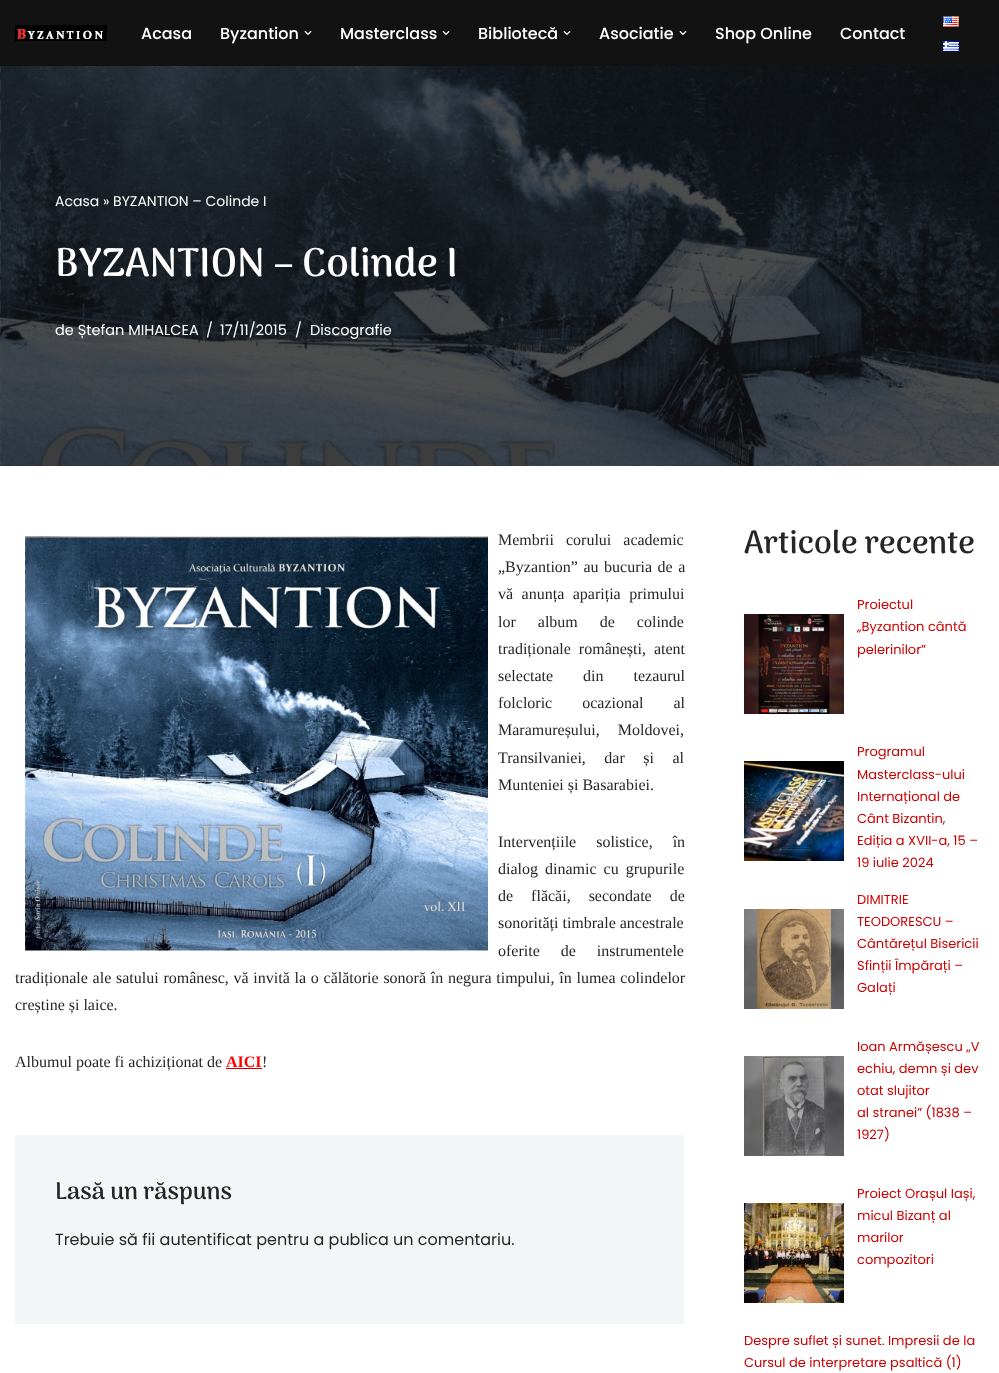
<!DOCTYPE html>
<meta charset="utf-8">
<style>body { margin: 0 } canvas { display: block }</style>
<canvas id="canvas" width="999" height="1373"></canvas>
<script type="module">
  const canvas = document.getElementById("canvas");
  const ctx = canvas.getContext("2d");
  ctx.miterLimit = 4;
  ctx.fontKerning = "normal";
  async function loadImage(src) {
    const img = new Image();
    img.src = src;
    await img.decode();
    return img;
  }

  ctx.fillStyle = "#ffffff";
  ctx.fillRect(0, 0, 999, 1373);
  ctx.fillStyle = "#121212";
  ctx.fillRect(0, 0, 999, 66);
  ctx.drawImage(await loadImage("img1.png"), 15, 25, 92, 16);
  ctx.font = "500 16px Poppins";
  ctx.fillStyle = "#ffffff";
  ctx.fillText("Acasa", 141, 39);
  ctx.fillText("Byzantion", 220, 39);
  ctx.drawImage(await loadImage("img2.png"), 304, 31, 8, 4);
  ctx.fillText("Masterclass", 340, 39);
  ctx.drawImage(await loadImage("img2.png"), 442, 31, 8, 4);
  ctx.fillText("Bibliotecă", 478, 39);
  ctx.drawImage(await loadImage("img2.png"), 563, 31, 8, 4);
  ctx.fillText("Asociatie", 599, 39);
  ctx.drawImage(await loadImage("img2.png"), 679, 31, 8, 4);
  ctx.fillText("Shop Online", 715, 39);
  ctx.fillText("Contact", 840, 39);
  ctx.drawImage(await loadImage("img3.png"), 943, 16, 16, 11);
  ctx.drawImage(await loadImage("img4.png"), 943, 41, 16, 11);
  ctx.drawImage(await loadImage("img5.png"), 0, 66, 999, 400);
  ctx.font = "14px Poppins";
  ctx.fillText("Acasa » BYZANTION – Colinde I", 55, 206);
  ctx.font = "bold 40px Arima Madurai";
  ctx.fillText("BYZANTION – Colinde I", 55, 276);
  ctx.font = "14.5px Poppins";
  ctx.fillText("de Ștefan MIHALCEA", 55, 335);
  ctx.fillText("/", 206, 335);
  ctx.fillText("17/11/2015", 220, 335);
  ctx.fillText("/", 295, 335);
  ctx.fillText("Discografie", 310, 335);
  ctx.drawImage(await loadImage("img6.png"), 25, 536, 463, 415);
  ctx.wordSpacing = "8px";
  ctx.font = "16px Liberation Serif";
  ctx.fillStyle = "#272626";
  ctx.fillText("Membrii corului academic", 498, 545);
  ctx.wordSpacing = "1.5px";
  ctx.fillText("„Byzantion” au bucuria de a", 498, 572);
  ctx.wordSpacing = "4.5px";
  ctx.fillText("vă anunța apariția primului", 498, 599);
  ctx.wordSpacing = "18px";
  ctx.fillText("lor album de colinde", 498, 627);
  ctx.wordSpacing = "4px";
  ctx.fillText("tradiționale românești, atent", 498, 654);
  ctx.wordSpacing = "26px";
  ctx.fillText("selectate din tezaurul", 498, 681);
  ctx.fillText("folcloric ocazional al", 498, 708);
  ctx.wordSpacing = "14px";
  ctx.fillText("Maramureșului, Moldovei,", 498, 735);
  ctx.wordSpacing = "14.5px";
  ctx.fillText("Transilvaniei, dar și al", 498, 763);
  ctx.wordSpacing = "0px";
  ctx.fillText("Munteniei și Basarabiei.", 498, 790);
  ctx.wordSpacing = "16px";
  ctx.fillText("Intervențiile solistice, în", 498, 847);
  ctx.wordSpacing = "3px";
  ctx.fillText("dialog dinamic cu grupurile", 498, 874);
  ctx.wordSpacing = "14px";
  ctx.fillText("de flăcăi, secondate de", 498, 901);
  ctx.wordSpacing = "0px";
  ctx.fillText("sonorități timbrale ancestrale", 498, 928);
  ctx.wordSpacing = "17px";
  ctx.fillText("oferite de instrumentele", 498, 956);
  ctx.wordSpacing = "0.75px";
  ctx.fillText("tradiționale ale satului românesc, vă invită la o călătorie sonoră în negura timpului, în lumea colindelor", 15, 983);
  ctx.wordSpacing = "0px";
  ctx.fillText("creștine și laice.", 15, 1010);
  ctx.fillText("Albumul poate fi achiziționat de", 15, 1067);
  ctx.font = "bold 16px Liberation Serif";
  ctx.fillStyle = "#ff0000";
  ctx.fillText("AICI", 226, 1067);
  ctx.fillStyle = "#cc0000";
  ctx.fillRect(226, 1068, 36, 1);
  ctx.font = "16px Liberation Serif";
  ctx.fillStyle = "#272626";
  ctx.fillText("!", 262, 1067);
  ctx.fillStyle = "#f4f5f7";
  ctx.fillRect(15, 1135, 669, 189);
  ctx.font = "bold 24px Arima Madurai";
  ctx.fillStyle = "#272626";
  ctx.fillText("Lasă un răspuns", 55, 1199);
  ctx.font = "16px Poppins";
  ctx.fillText("Trebuie să fii autentificat pentru a publica un comentariu.", 55, 1245);
  ctx.font = "bold 32px Arima Madurai";
  ctx.fillText("Articole recente", 744, 553);
  ctx.font = "13px Poppins";
  ctx.fillStyle = "#cc0000";
  ctx.fillText("Proiectul", 857, 609);
  ctx.drawImage(await loadImage("img7.png"), 744, 614, 100, 100);
  ctx.fillText("„Byzantion cântă", 857, 631);
  ctx.fillText("pelerinilor”", 857, 654);
  ctx.fillText("Programul", 857, 756);
  ctx.drawImage(await loadImage("img8.png"), 744, 761, 100, 100);
  ctx.fillText("Masterclass-ului", 857, 779);
  ctx.fillText("Internațional de", 857, 801);
  ctx.fillText("Cânt Bizantin,", 857, 823);
  ctx.fillText("Ediția a XVII-a, 15 –", 857, 845);
  ctx.fillText("19 iulie 2024", 857, 867);
  ctx.fillText("DIMITRIE", 857, 904);
  ctx.drawImage(await loadImage("img9.png"), 744, 909, 100, 100);
  ctx.fillText("TEODORESCU –", 857, 926);
  ctx.fillText("Cântărețul Bisericii", 857, 948);
  ctx.fillText("Sfinții Împărați –", 857, 970);
  ctx.fillText("Galați", 857, 992);
  ctx.fillText("Ioan Armășescu „V", 857, 1051);
  ctx.drawImage(await loadImage("img10.png"), 744, 1056, 100, 100);
  ctx.fillText("echiu, demn și dev", 857, 1073);
  ctx.fillText("otat slujitor", 857, 1095);
  ctx.fillText("al stranei” (1838 –", 857, 1117);
  ctx.fillText("1927)", 857, 1139);
  ctx.fillText("Proiect Orașul Iași,", 857, 1198);
  ctx.drawImage(await loadImage("img11.png"), 744, 1203, 100, 100);
  ctx.fillText("micul Bizanț al", 857, 1220);
  ctx.fillText("marilor", 857, 1242);
  ctx.fillText("compozitori", 857, 1264);
  ctx.fillText("Despre suflet și sunet. Impresii de la", 744, 1345);
  ctx.fillText("Cursul de interpretare psaltică (1)", 744, 1367);
</script>
